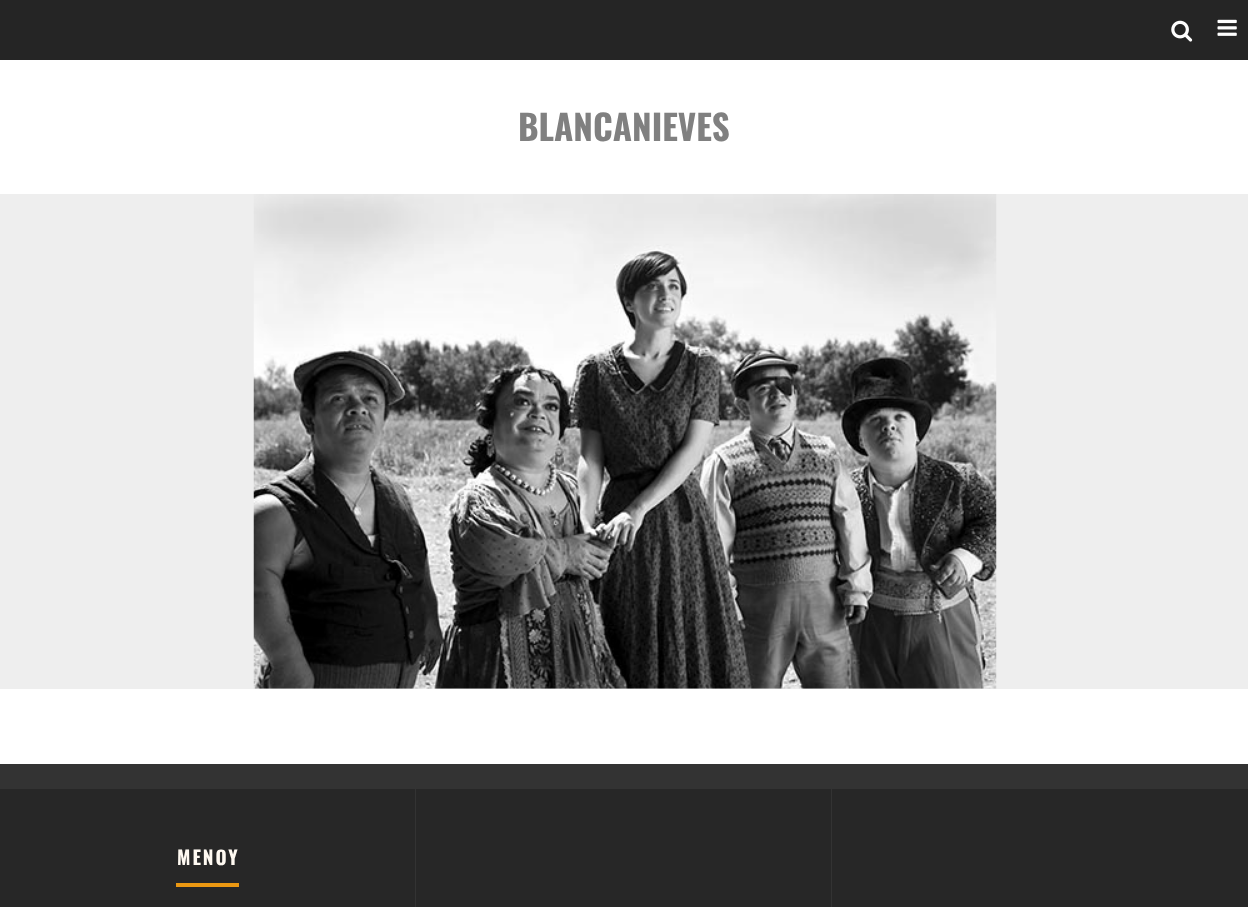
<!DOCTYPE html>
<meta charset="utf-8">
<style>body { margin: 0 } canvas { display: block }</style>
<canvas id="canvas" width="1248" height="907"></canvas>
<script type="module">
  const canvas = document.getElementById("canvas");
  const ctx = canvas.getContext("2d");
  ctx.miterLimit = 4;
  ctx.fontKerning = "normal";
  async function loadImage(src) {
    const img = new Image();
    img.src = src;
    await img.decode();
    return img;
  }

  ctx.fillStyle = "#ffffff";
  ctx.fillRect(0, 0, 1248, 907);
  ctx.fillStyle = "#252525";
  ctx.fillRect(0, 0, 1248, 60);
  ctx.drawImage(await loadImage("img1.png"), 1171, 20, 22, 22);
  ctx.drawImage(await loadImage("img2.png"), 1217, 19, 20, 17);
  ctx.font = "bold 35px Oswald";
  ctx.fillStyle = "#808080";
  ctx.fillText("BLANCANIEVES", 518, 141);
  ctx.fillStyle = "#eeeeee";
  ctx.fillRect(0, 194, 1248, 495);
  ctx.drawImage(await loadImage("img3.png"), 253, 194, 744, 495);
  ctx.fillStyle = "#333333";
  ctx.fillRect(0, 764, 1248, 25);
  ctx.fillStyle = "#272727";
  ctx.fillRect(0, 789, 1248, 118);
  ctx.fillStyle = "#333333";
  ctx.fillRect(415, 789, 1, 118);
  ctx.letterSpacing = "2px";
  ctx.font = "bold 19px Oswald";
  ctx.fillStyle = "#fffaf2";
  ctx.fillText("MENOY", 177, 865);
  ctx.fillStyle = "#eb9812";
  ctx.fillRect(176, 883, 63, 4);
  ctx.fillStyle = "#333333";
  ctx.fillRect(831, 789, 1, 118);
</script>
